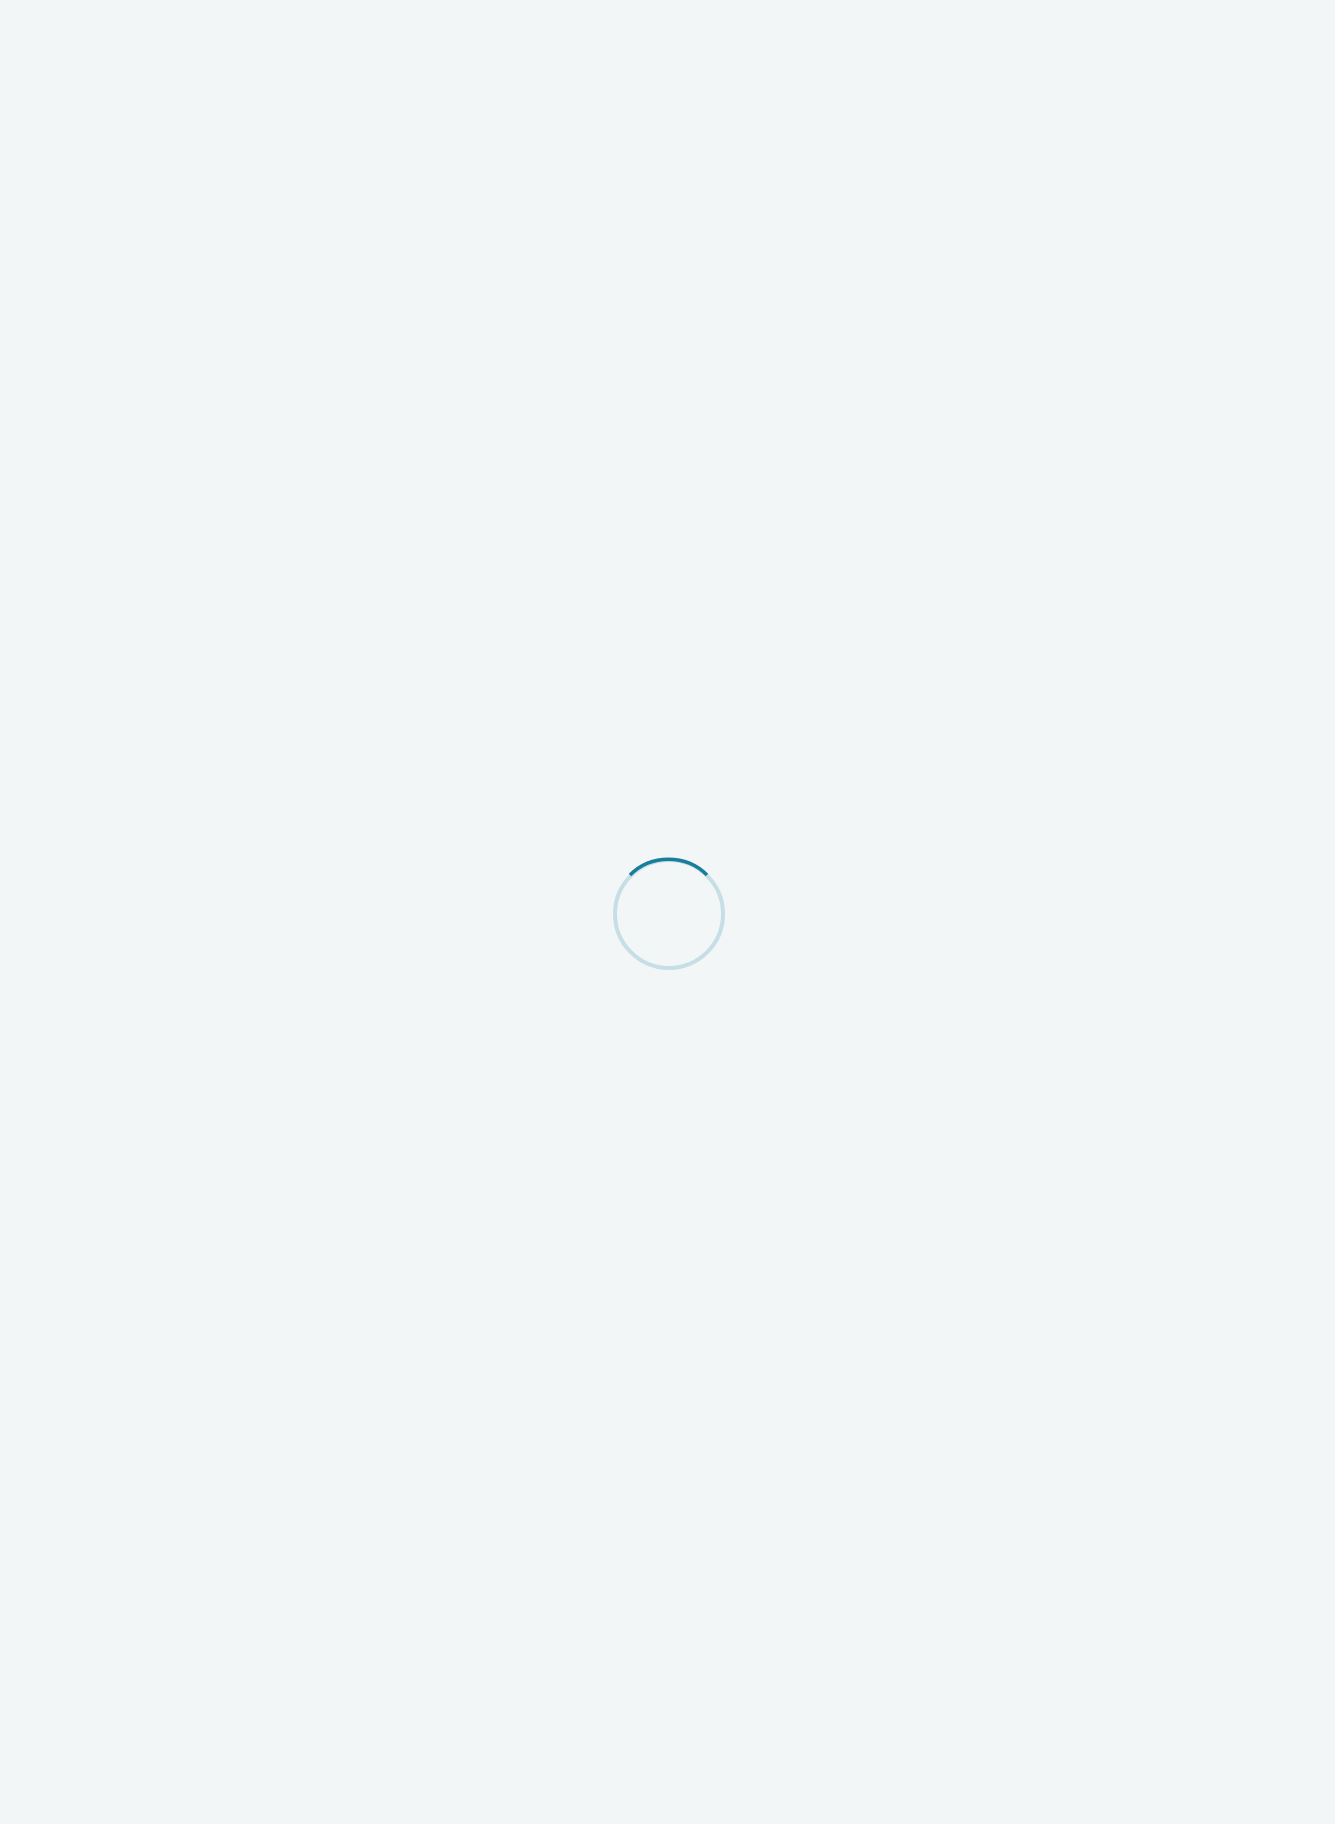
<!DOCTYPE html>
<meta charset="utf-8">
<style>body { margin: 0 } canvas { display: block }</style>
<canvas id="canvas" width="1335" height="1824"></canvas>
<script type="module">
  const canvas = document.getElementById("canvas");
  const ctx = canvas.getContext("2d");
  ctx.miterLimit = 4;
  ctx.fontKerning = "normal";

  ctx.fillStyle = "#f2f6f7";
  ctx.fillRect(0, 0, 1335, 1824);
  ctx.beginPath();
  ctx.arc(669, 914, 54, 0, Math.PI * 2);
  ctx.strokeStyle = "#c6dee5";
  ctx.lineWidth = 4;
  ctx.stroke();
  ctx.beginPath();
  ctx.moveTo(630, 875);
  ctx.bezierCurveTo(651, 854, 686, 854, 707, 875);
  ctx.strokeStyle = "#177f9c";
  ctx.lineWidth = 3.5;
  ctx.stroke();
</script>
